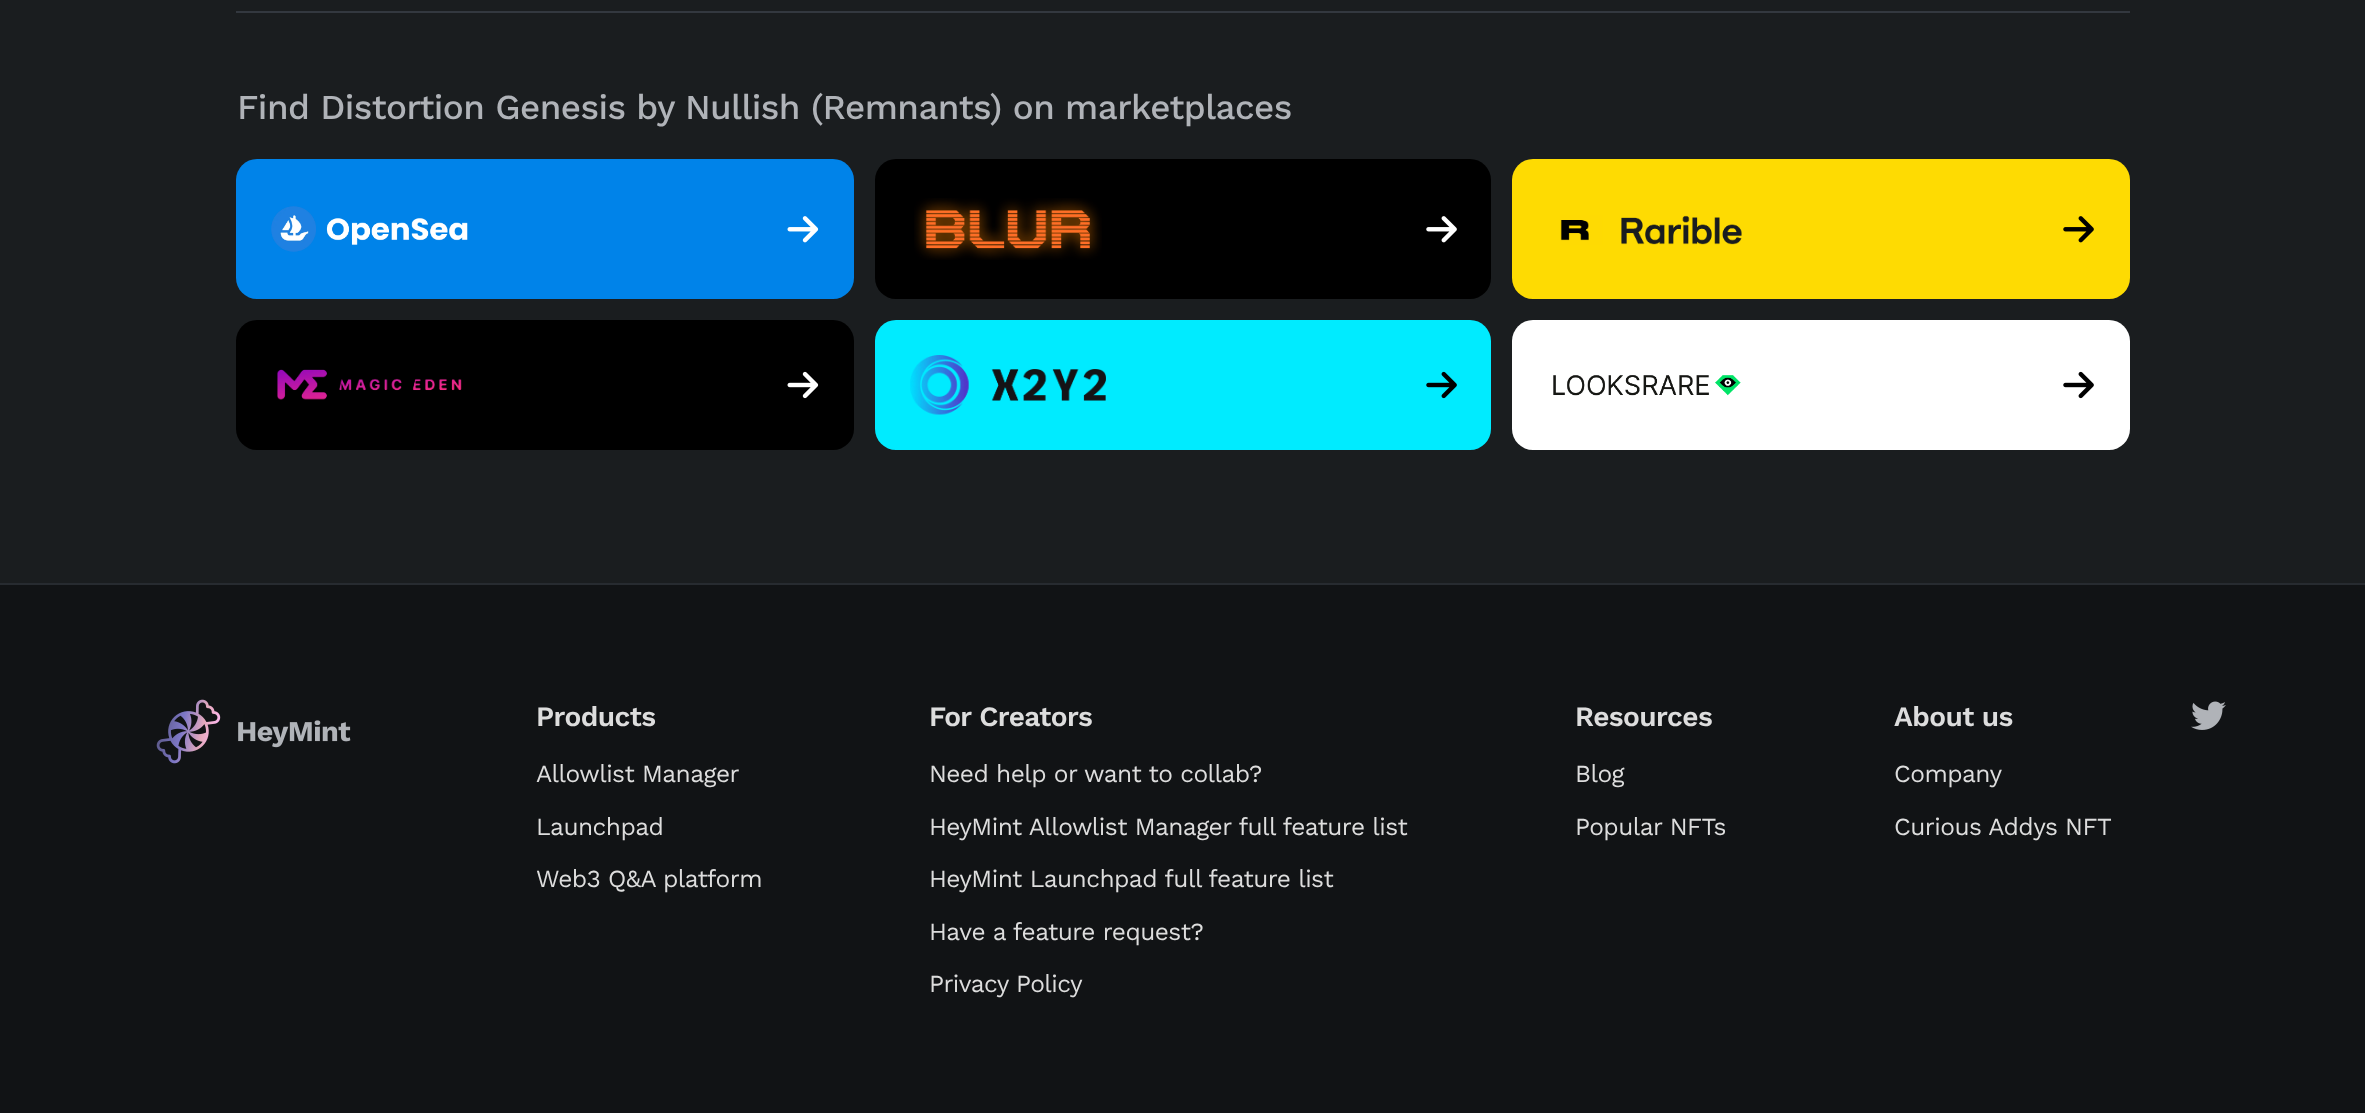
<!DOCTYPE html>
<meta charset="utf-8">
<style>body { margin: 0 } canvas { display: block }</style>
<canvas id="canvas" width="2365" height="1113"></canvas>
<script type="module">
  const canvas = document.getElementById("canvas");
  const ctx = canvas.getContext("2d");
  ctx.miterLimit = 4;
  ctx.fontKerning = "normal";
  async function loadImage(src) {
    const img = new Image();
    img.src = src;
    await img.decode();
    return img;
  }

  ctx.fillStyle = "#1a1d1f";
  ctx.fillRect(0, 0, 2365, 1113);
  ctx.fillStyle = "#33383f";
  ctx.fillRect(236, 11, 1894, 2);
  ctx.letterSpacing = "-0.55px";
  ctx.font = "500 35px Work Sans";
  ctx.fillStyle = "#b0b3b8";
  ctx.fillText("Find Distortion Genesis by Nullish (Remnants) on marketplaces", 237, 119);
  ctx.fillStyle = "#0083e9";
  ctx.beginPath();
  ctx.roundRect(236, 159, 618, 140, 21);
  ctx.fill();
  ctx.drawImage(await loadImage("img1.png"), 271, 206, 197, 46);
  ctx.drawImage(await loadImage("img2.png"), 787, 216, 32, 27);
  ctx.fillStyle = "#000000";
  ctx.beginPath();
  ctx.roundRect(875, 159, 616, 140, 21);
  ctx.fill();
  ctx.drawImage(await loadImage("img3.png"), 914, 198, 188, 62);
  ctx.drawImage(await loadImage("img4.png"), 1426, 216, 31, 27);
  ctx.fillStyle = "#fedb02";
  ctx.beginPath();
  ctx.roundRect(1512, 159, 618, 140, 21);
  ctx.fill();
  ctx.drawImage(await loadImage("img5.png"), 1560, 215, 182, 30);
  ctx.drawImage(await loadImage("img6.png"), 2063, 216, 31, 27);
  ctx.fillStyle = "#000000";
  ctx.beginPath();
  ctx.roundRect(236, 320, 618, 130, 21);
  ctx.fill();
  ctx.drawImage(await loadImage("img7.png"), 277, 369, 185, 31);
  ctx.drawImage(await loadImage("img8.png"), 787, 371, 32, 28);
  ctx.fillStyle = "#00ebff";
  ctx.beginPath();
  ctx.roundRect(875, 320, 616, 130, 21);
  ctx.fill();
  ctx.drawImage(await loadImage("img9.png"), 910, 355, 196, 60);
  ctx.drawImage(await loadImage("img10.png"), 1426, 371, 31, 28);
  ctx.fillStyle = "#ffffff";
  ctx.beginPath();
  ctx.roundRect(1512, 320, 618, 130, 21);
  ctx.fill();
  ctx.drawImage(await loadImage("img11.png"), 1553, 375, 188, 21);
  ctx.drawImage(await loadImage("img12.png"), 2063, 371, 31, 28);
  ctx.fillStyle = "#111315";
  ctx.fillRect(0, 585, 2365, 528);
  ctx.fillStyle = "#272b30";
  ctx.fillRect(0, 583, 2365, 2);
  ctx.drawImage(await loadImage("img13.png"), 156, 699, 195, 65);
  ctx.font = "600 28px Work Sans";
  ctx.fillStyle = "#dddddd";
  ctx.fillText("Products", 536, 726);
  ctx.font = "24.5px Work Sans";
  ctx.fillText("Allowlist Manager", 536, 782);
  ctx.fillText("Launchpad", 536, 835);
  ctx.fillText("Web3 Q&A platform", 536, 887);
  ctx.font = "600 28px Work Sans";
  ctx.fillText("For Creators", 929, 726);
  ctx.font = "24.5px Work Sans";
  ctx.fillText("Need help or want to collab?", 929, 782);
  ctx.fillText("HeyMint Allowlist Manager full feature list", 929, 835);
  ctx.fillText("HeyMint Launchpad full feature list", 929, 887);
  ctx.fillText("Have a feature request?", 929, 940);
  ctx.fillText("Privacy Policy", 929, 992);
  ctx.font = "600 28px Work Sans";
  ctx.fillText("Resources", 1575, 726);
  ctx.font = "24.5px Work Sans";
  ctx.fillText("Blog", 1575, 782);
  ctx.fillText("Popular NFTs", 1575, 835);
  ctx.font = "600 28px Work Sans";
  ctx.fillText("About us", 1894, 726);
  ctx.font = "24.5px Work Sans";
  ctx.fillText("Company", 1894, 782);
  ctx.fillText("Curious Addys NFT", 1894, 835);
  ctx.drawImage(await loadImage("img14.png"), 2191, 701, 35, 29);
</script>
